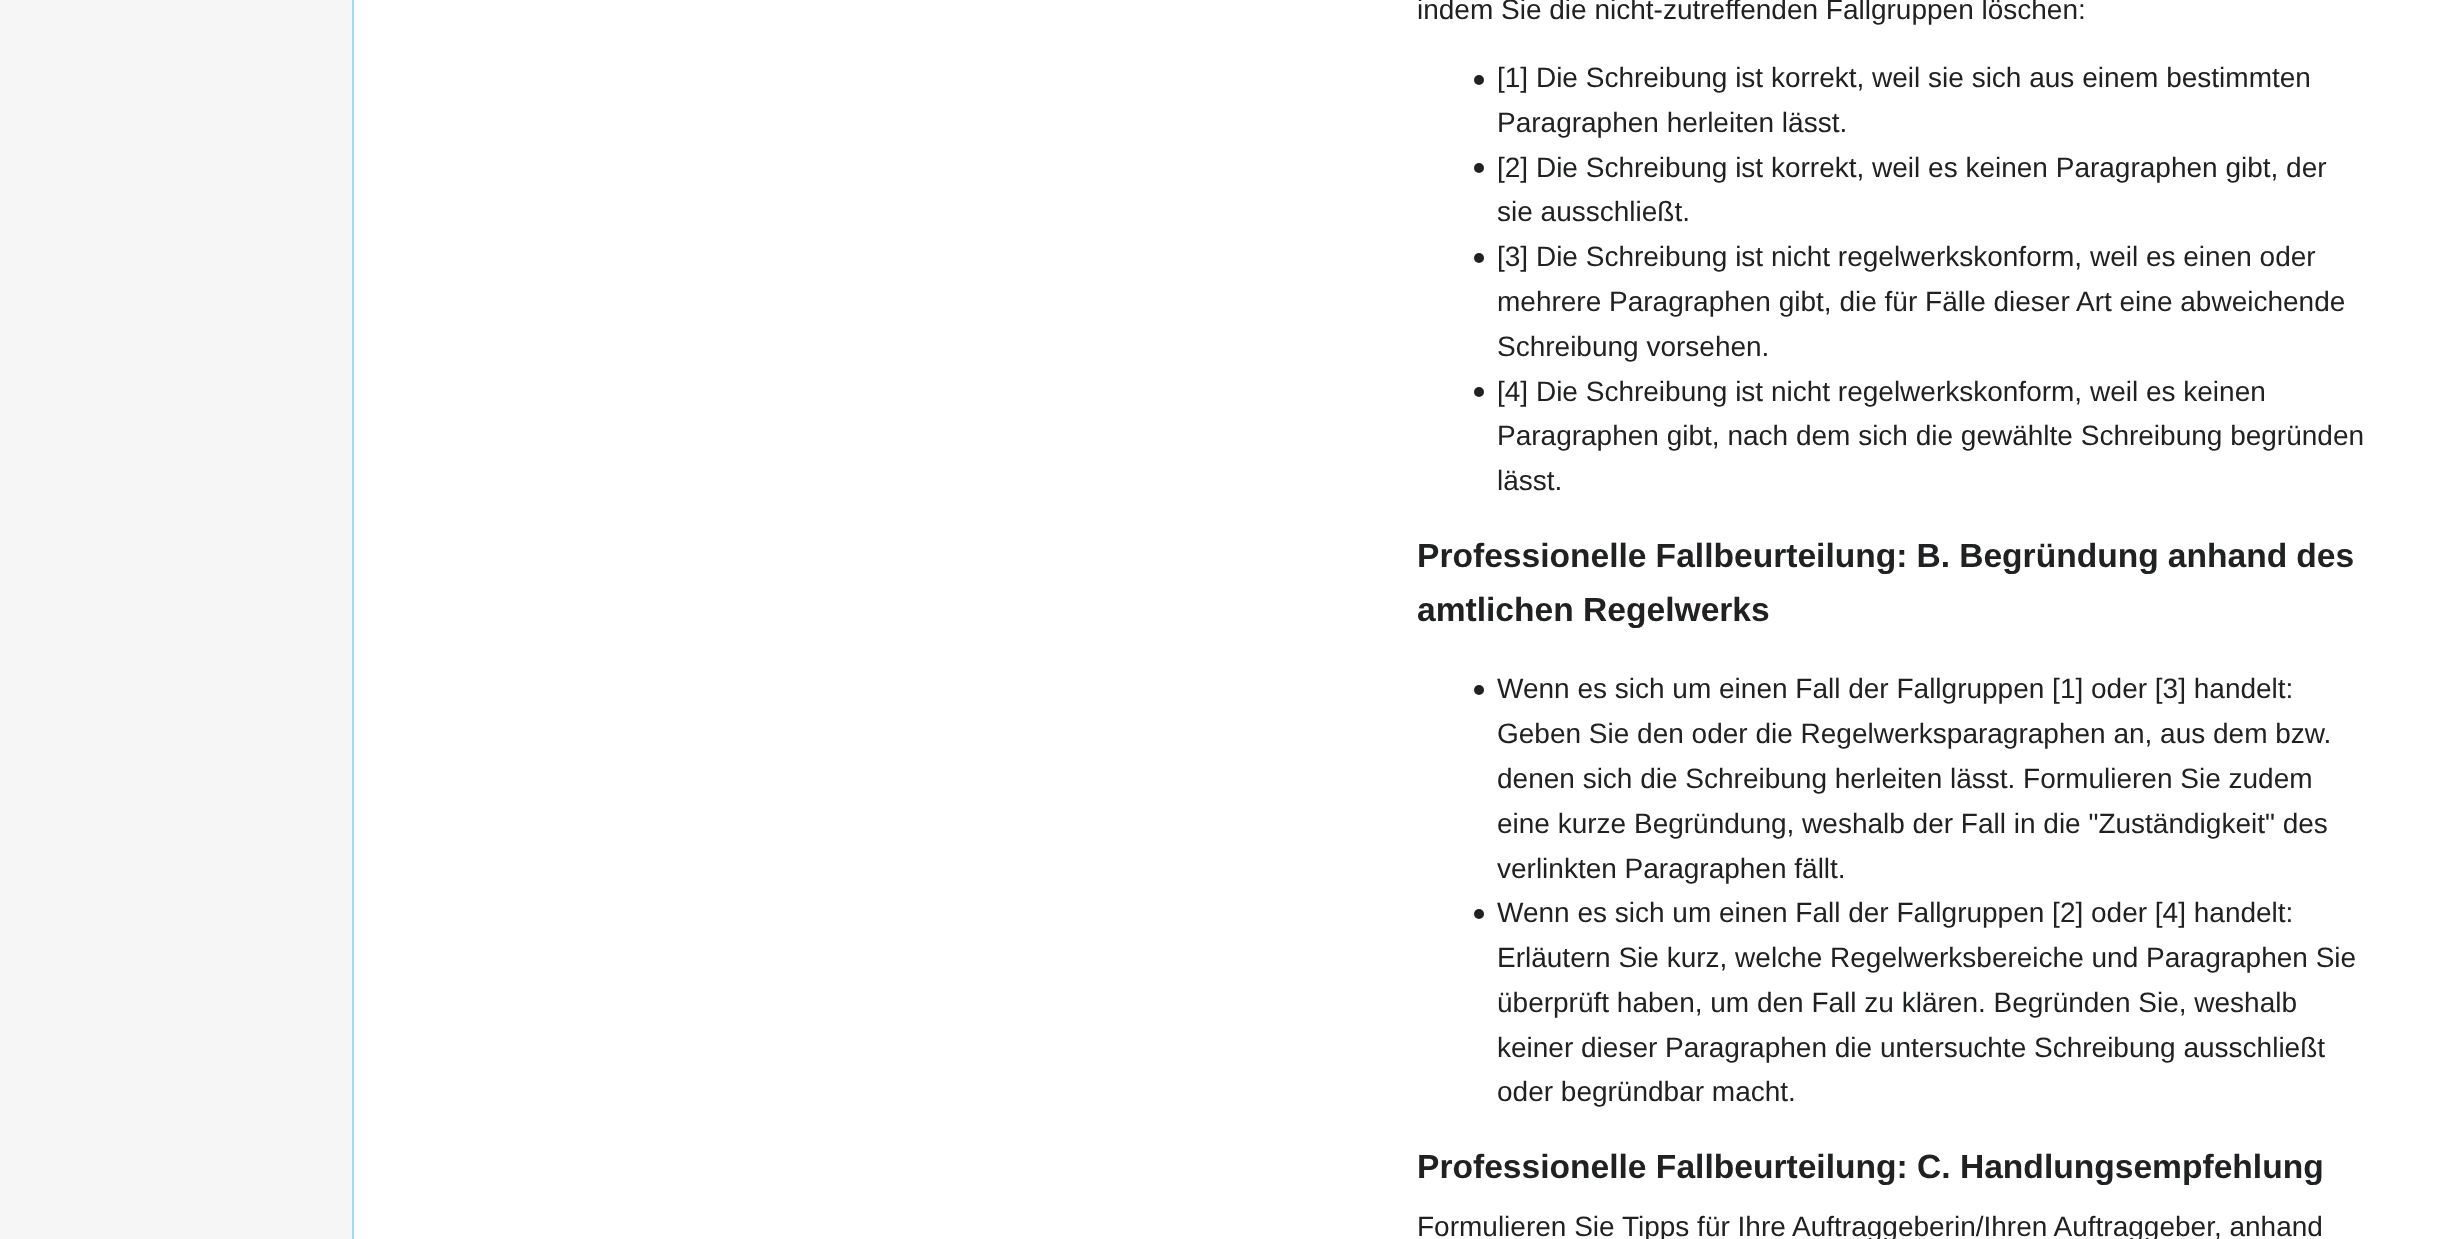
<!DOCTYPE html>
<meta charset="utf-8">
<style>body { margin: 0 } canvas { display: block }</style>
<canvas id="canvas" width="2445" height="1239"></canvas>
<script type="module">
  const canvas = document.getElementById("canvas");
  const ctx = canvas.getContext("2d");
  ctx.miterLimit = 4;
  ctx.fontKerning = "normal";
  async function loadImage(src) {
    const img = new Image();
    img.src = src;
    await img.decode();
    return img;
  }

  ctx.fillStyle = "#f6f6f6";
  ctx.fillRect(0, 0, 2445, 1239);
  ctx.fillStyle = "#ffffff";
  ctx.fillRect(354, 0, 2091, 1239);
  ctx.fillStyle = "#a7d7f9";
  ctx.fillRect(352, 0, 2, 1239);
  ctx.font = "28px Liberation Sans";
  ctx.fillStyle = "#202122";
  ctx.fillText("indem Sie die nicht-zutreffenden Fallgruppen löschen:", 1417, 19);
  ctx.drawImage(await loadImage("img1.png"), 1474, 75, 10, 10);
  ctx.fillText("[1] Die Schreibung ist korrekt, weil sie sich aus einem bestimmten", 1497, 87);
  ctx.fillText("Paragraphen herleiten lässt.", 1497, 132);
  ctx.drawImage(await loadImage("img1.png"), 1474, 163, 10, 10);
  ctx.fillText("[2] Die Schreibung ist korrekt, weil es keinen Paragraphen gibt, der", 1497, 177);
  ctx.fillText("sie ausschließt.", 1497, 221);
  ctx.drawImage(await loadImage("img1.png"), 1474, 253, 10, 10);
  ctx.fillText("[3] Die Schreibung ist nicht regelwerkskonform, weil es einen oder", 1497, 266);
  ctx.fillText("mehrere Paragraphen gibt, die für Fälle dieser Art eine abweichende", 1497, 311);
  ctx.fillText("Schreibung vorsehen.", 1497, 356);
  ctx.drawImage(await loadImage("img1.png"), 1474, 387, 10, 10);
  ctx.fillText("[4] Die Schreibung ist nicht regelwerkskonform, weil es keinen", 1497, 401);
  ctx.fillText("Paragraphen gibt, nach dem sich die gewählte Schreibung begründen", 1497, 445);
  ctx.fillText("lässt.", 1497, 490);
  ctx.wordSpacing = "-0.25px";
  ctx.font = "bold 33.6px Liberation Sans";
  ctx.fillText("Professionelle Fallbeurteilung: B. Begründung anhand des", 1417, 567);
  ctx.wordSpacing = "0px";
  ctx.fillText("amtlichen Regelwerks", 1417, 621);
  ctx.drawImage(await loadImage("img1.png"), 1474, 685, 10, 10);
  ctx.font = "28px Liberation Sans";
  ctx.fillText("Wenn es sich um einen Fall der Fallgruppen [1] oder [3] handelt:", 1497, 698);
  ctx.fillText("Geben Sie den oder die Regelwerksparagraphen an, aus dem bzw.", 1497, 743);
  ctx.fillText("denen sich die Schreibung herleiten lässt. Formulieren Sie zudem", 1497, 788);
  ctx.fillText("eine kurze Begründung, weshalb der Fall in die \"Zuständigkeit\" des", 1497, 833);
  ctx.fillText("verlinkten Paragraphen fällt.", 1497, 878);
  ctx.drawImage(await loadImage("img1.png"), 1474, 909, 10, 10);
  ctx.fillText("Wenn es sich um einen Fall der Fallgruppen [2] oder [4] handelt:", 1497, 922);
  ctx.fillText("Erläutern Sie kurz, welche Regelwerksbereiche und Paragraphen Sie", 1497, 967);
  ctx.fillText("überprüft haben, um den Fall zu klären. Begründen Sie, weshalb", 1497, 1012);
  ctx.fillText("keiner dieser Paragraphen die untersuchte Schreibung ausschließt", 1497, 1057);
  ctx.fillText("oder begründbar macht.", 1497, 1101);
  ctx.font = "bold 33.6px Liberation Sans";
  ctx.fillText("Professionelle Fallbeurteilung: C. Handlungsempfehlung", 1417, 1178);
  ctx.font = "28px Liberation Sans";
  ctx.fillText("Formulieren Sie Tipps für Ihre Auftraggeberin/Ihren Auftraggeber, anhand", 1417, 1236);
</script>
